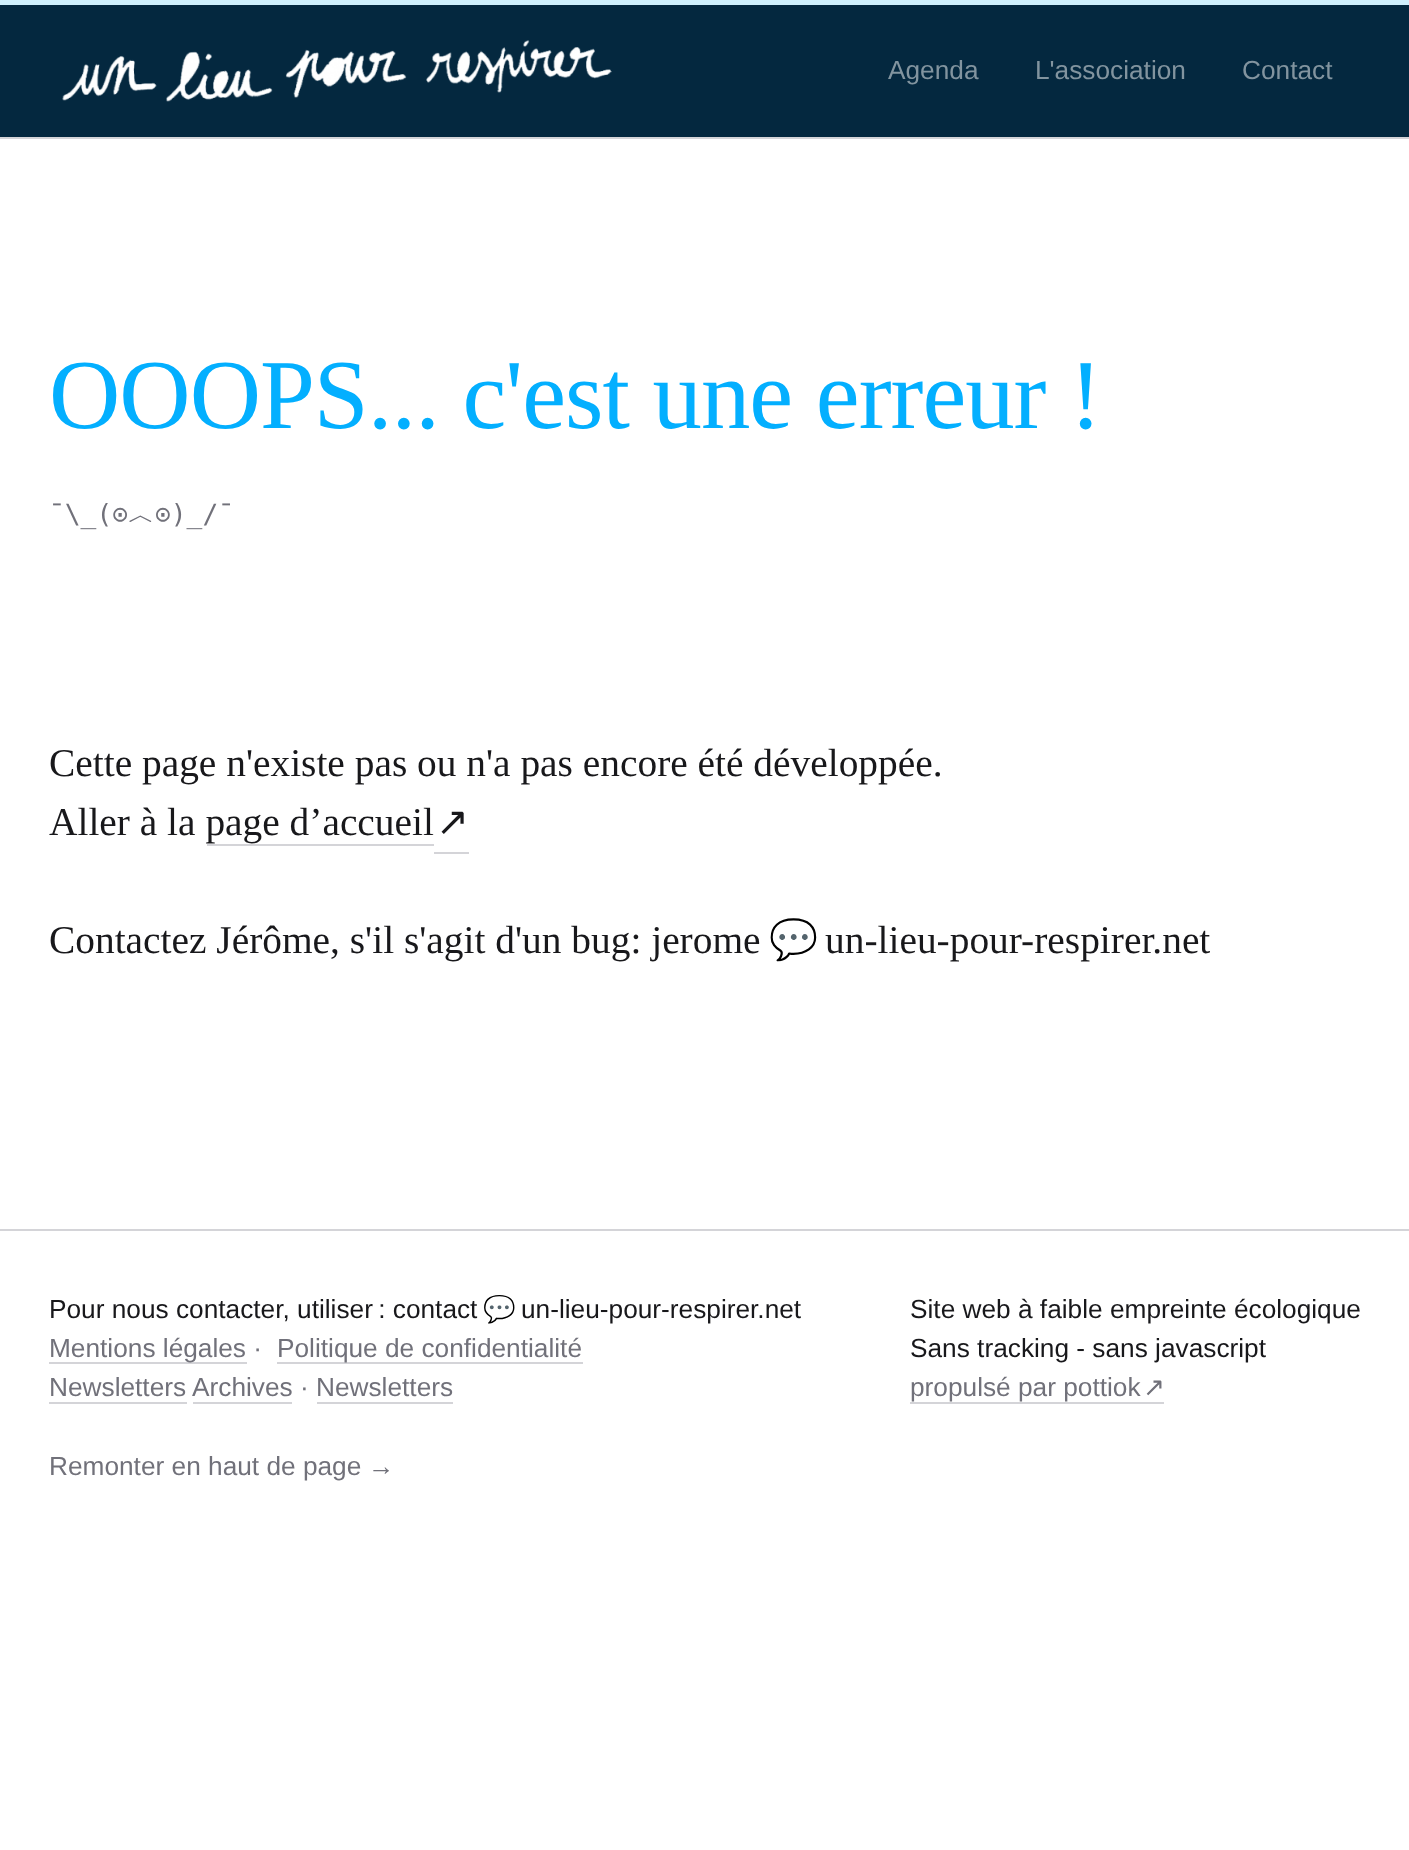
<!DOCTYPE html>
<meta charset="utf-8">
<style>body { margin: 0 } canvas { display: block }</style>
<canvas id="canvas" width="1409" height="1850"></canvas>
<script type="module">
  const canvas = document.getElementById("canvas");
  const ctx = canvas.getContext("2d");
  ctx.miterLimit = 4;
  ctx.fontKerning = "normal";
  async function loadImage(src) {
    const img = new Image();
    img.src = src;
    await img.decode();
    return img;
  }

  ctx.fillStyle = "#ffffff";
  ctx.fillRect(0, 0, 1409, 1850);
  ctx.fillStyle = "#d0f0fd";
  ctx.fillRect(0, 0, 1409, 5);
  ctx.fillStyle = "#04283f";
  ctx.fillRect(0, 5, 1409, 132);
  ctx.fillStyle = "#d4d4d8";
  ctx.fillRect(0, 137, 1409, 2);
  ctx.drawImage(await loadImage("img1.png"), 62, 40, 550, 62);
  ctx.font = "26.25px Liberation Sans";
  ctx.fillStyle = "#82949f";
  ctx.fillText("Agenda", 888, 79);
  ctx.fillText("L'association", 1035, 79);
  ctx.fillText("Contact", 1242, 79);
  ctx.fillStyle = "#d4d4d8";
  ctx.fillRect(0, 1229, 1409, 2);
  ctx.letterSpacing = "-1px";
  ctx.font = "98.75px Liberation Serif";
  ctx.fillStyle = "#03afff";
  ctx.fillText("OOOPS... c'est une erreur !", 49, 428);
  ctx.letterSpacing = "0px";
  ctx.font = "26.25px DejaVu Sans Mono";
  ctx.fillStyle = "#71717a";
  ctx.fillText("¯\\_(⊙", 49, 523);
  ctx.font = "500 26.25px WenQuanYi Zen Hei";
  ctx.fillText("︿", 128, 523);
  ctx.font = "26.25px DejaVu Sans Mono";
  ctx.fillText("⊙)_/¯", 155, 523);
  ctx.font = "39.4px Liberation Serif";
  ctx.fillStyle = "#18181b";
  ctx.fillText("Cette page n'existe pas ou n'a pas encore été développée.", 49, 776);
  ctx.fillText("Aller à la page d’accueil", 49, 835);
  ctx.fillStyle = "#d4d4d8";
  ctx.fillRect(207, 844, 227, 2);
  ctx.fillRect(434, 852, 35, 2);
  ctx.font = "39.4px DejaVu Sans";
  ctx.fillStyle = "#18181b";
  ctx.fillText("↗", 436, 835);
  ctx.font = "39.4px Liberation Serif";
  ctx.fillText("Contactez Jérôme, s'il s'agit d'un bug: jerome", 49, 953);
  ctx.font = "39.4px Noto Color Emoji";
  ctx.fillText("💬", 769, 953);
  ctx.font = "39.4px Liberation Serif";
  ctx.fillText("un-lieu-pour-respirer.net", 825, 953);
  ctx.font = "26.25px Liberation Sans";
  ctx.fillText("Pour nous contacter, utiliser : contact", 49, 1318);
  ctx.font = "26.25px Noto Color Emoji";
  ctx.fillText("💬", 483, 1318);
  ctx.font = "26.25px Liberation Sans";
  ctx.fillText("un-lieu-pour-respirer.net", 521, 1318);
  ctx.fillStyle = "#d4d4d8";
  ctx.fillRect(49, 1362, 198, 2);
  ctx.fillStyle = "#71717a";
  ctx.fillText("Mentions légales ·", 49, 1357);
  ctx.fillStyle = "#d4d4d8";
  ctx.fillRect(277, 1362, 306, 2);
  ctx.fillStyle = "#71717a";
  ctx.fillText("Politique de confidentialité", 277, 1357);
  ctx.fillText("Newsletters", 49, 1396);
  ctx.fillStyle = "#d4d4d8";
  ctx.fillRect(49, 1402, 138, 2);
  ctx.fillStyle = "#71717a";
  ctx.fillText("Archives · Newsletters", 192, 1396);
  ctx.fillStyle = "#d4d4d8";
  ctx.fillRect(193, 1402, 99, 2);
  ctx.fillRect(317, 1402, 136, 2);
  ctx.fillStyle = "#18181b";
  ctx.fillText("Site web à faible empreinte écologique", 910, 1318);
  ctx.fillText("Sans tracking - sans javascript", 910, 1357);
  ctx.fillStyle = "#71717a";
  ctx.fillText("propulsé par pottiok", 910, 1396);
  ctx.fillStyle = "#d4d4d8";
  ctx.fillRect(910, 1402, 254, 2);
  ctx.font = "26.25px DejaVu Sans";
  ctx.fillStyle = "#71717a";
  ctx.fillText("↗", 1143, 1396);
  ctx.font = "26.25px Liberation Sans";
  ctx.fillText("Remonter en haut de page", 49, 1475);
  ctx.fillText("→", 368, 1475);
</script>
